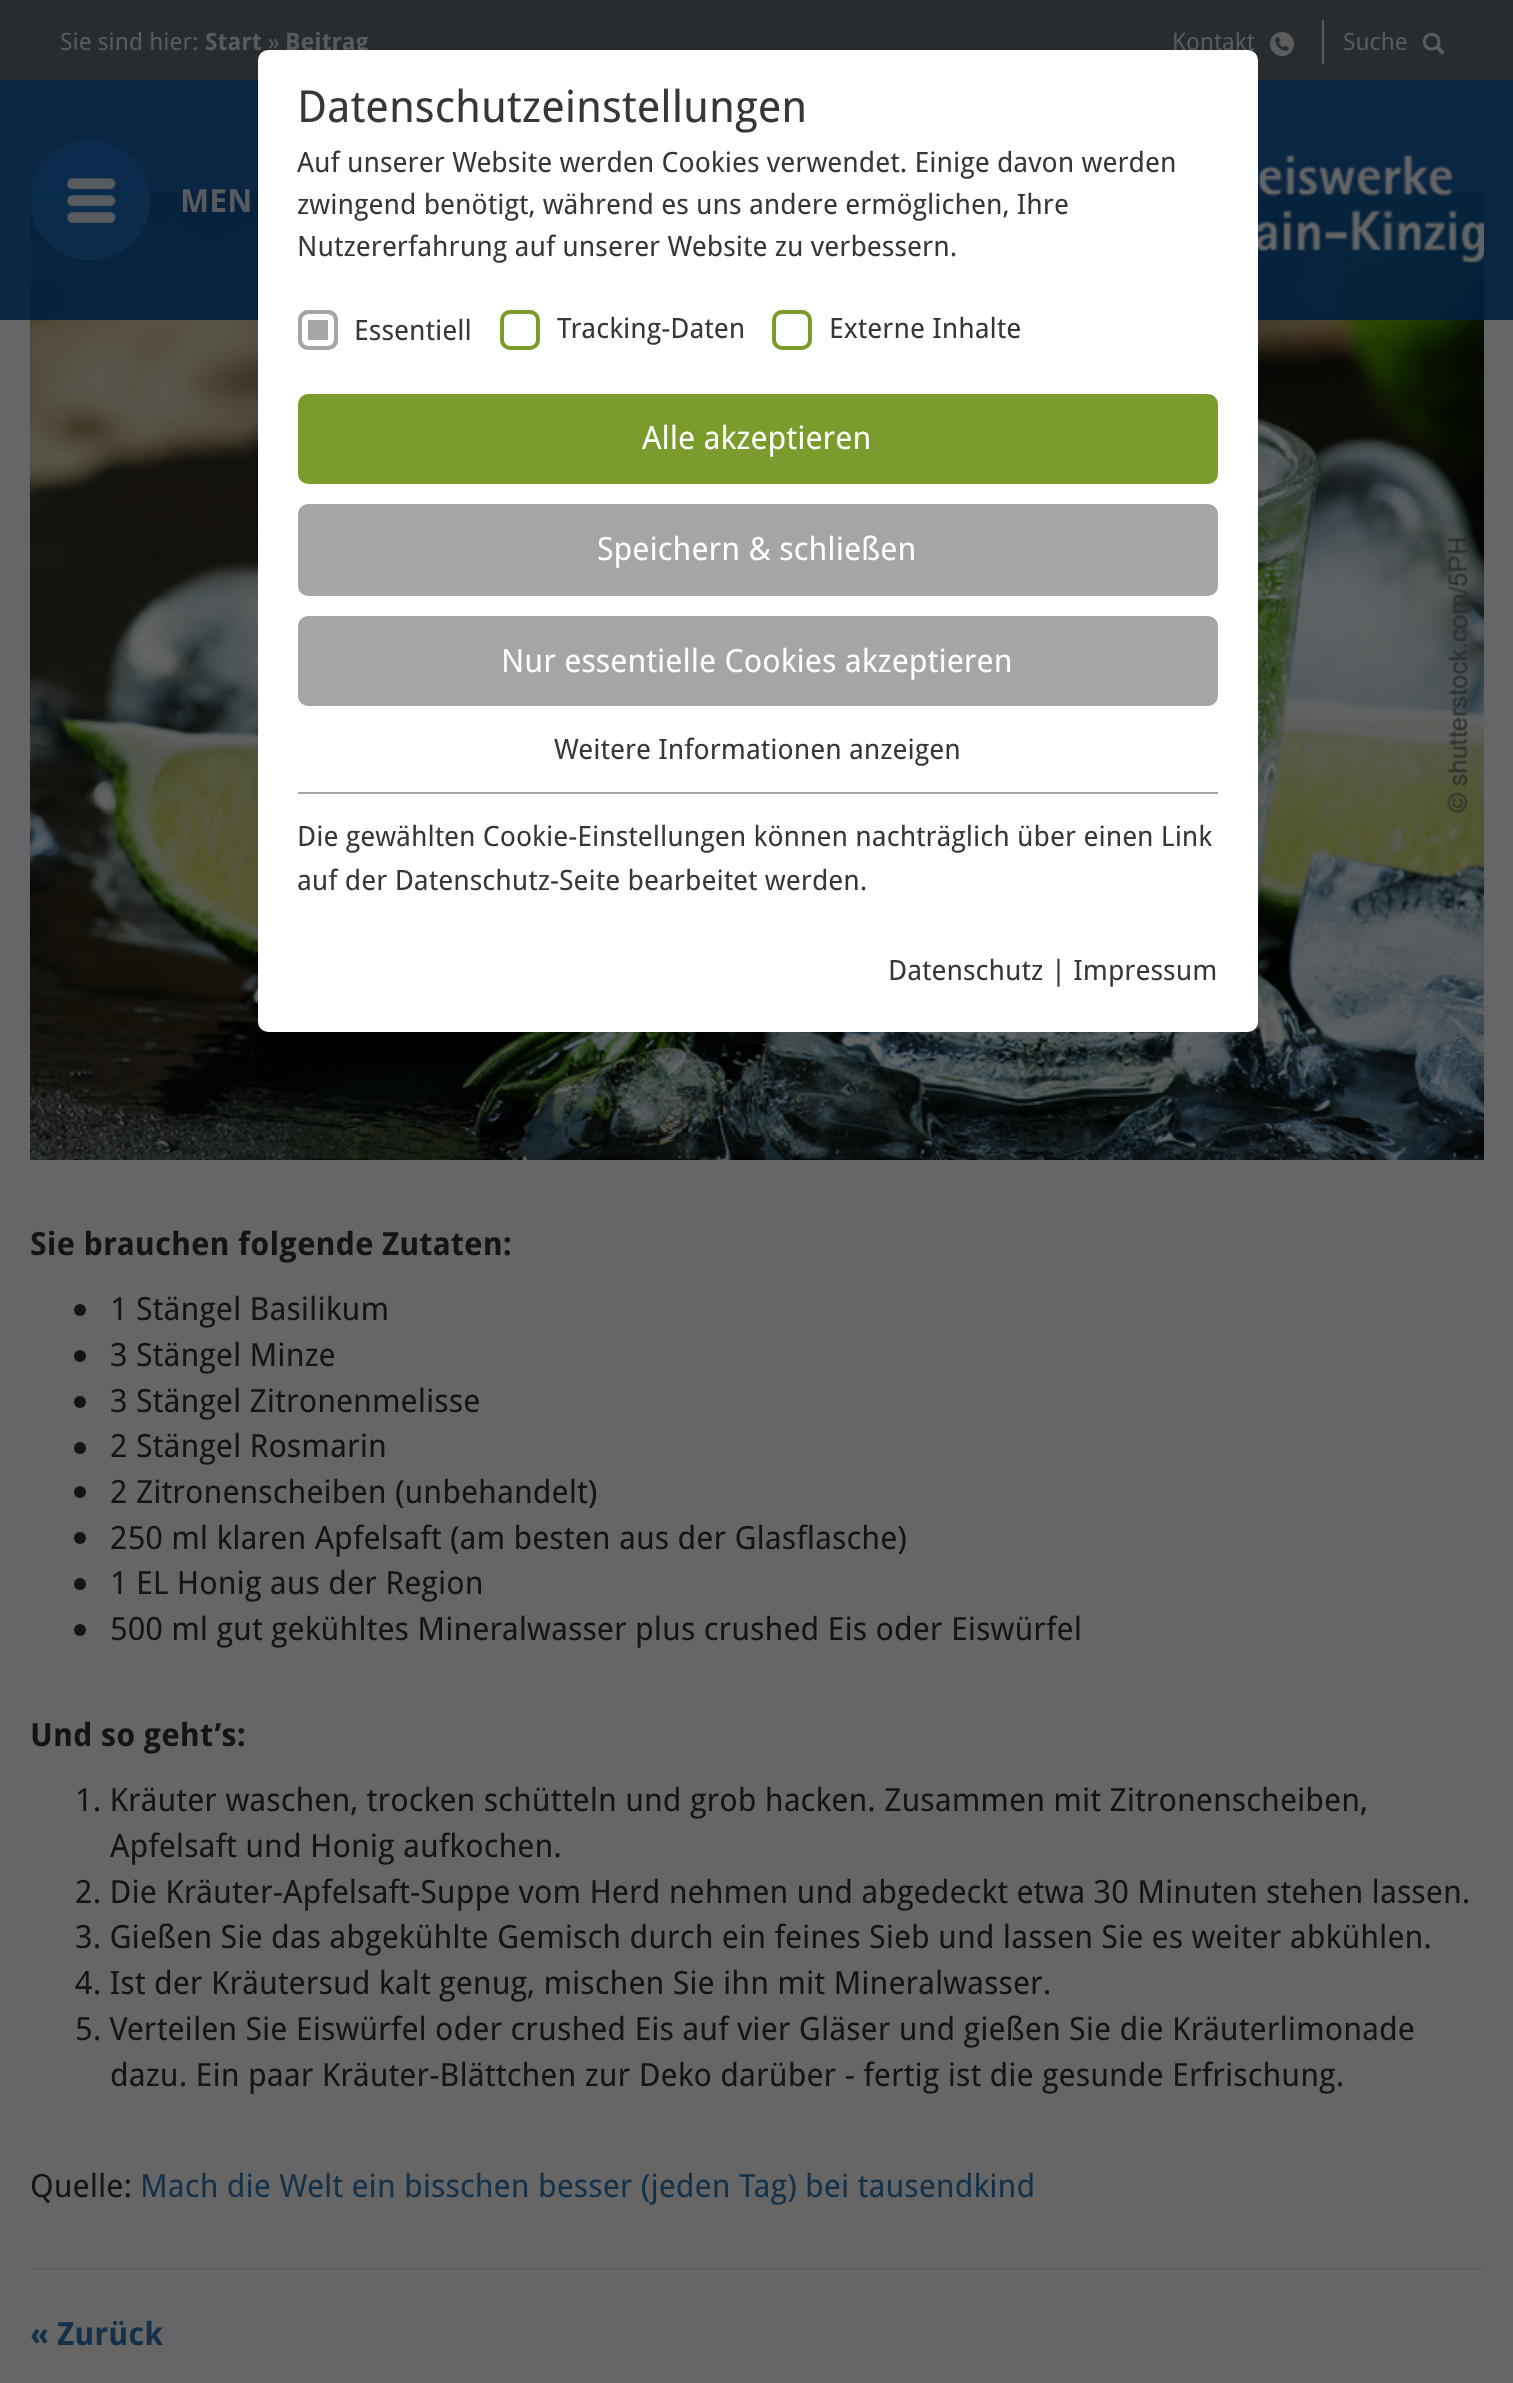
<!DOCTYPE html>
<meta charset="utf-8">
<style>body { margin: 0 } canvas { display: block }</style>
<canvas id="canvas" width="1513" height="2383"></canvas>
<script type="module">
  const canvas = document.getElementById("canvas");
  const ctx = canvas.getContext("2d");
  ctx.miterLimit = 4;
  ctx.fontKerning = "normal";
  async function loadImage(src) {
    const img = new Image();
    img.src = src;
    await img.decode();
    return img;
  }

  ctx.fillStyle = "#666666";
  ctx.fillRect(0, 0, 1513, 2383);
  ctx.fillStyle = "#5f5f5f";
  ctx.fillRect(30, 150, 1454, 2);
  ctx.drawImage(await loadImage("img5.png"), 30, 192, 1454, 968);
  ctx.fillStyle = "rgba(0, 31, 63, 0.9)";
  ctx.fillRect(0, 0, 1513, 320);
  ctx.fillStyle = "rgba(45, 46, 45, 0.85)";
  ctx.fillRect(0, 0, 1513, 80);
  ctx.font = "24px Droid Sans";
  ctx.fillStyle = "#585c60";
  ctx.fillText("Sie sind hier:", 60, 50);
  ctx.font = "bold 24px Droid Sans";
  ctx.fillText("Start", 205, 50);
  ctx.font = "24px Droid Sans";
  ctx.fillText("»", 268, 50);
  ctx.font = "bold 24px Droid Sans";
  ctx.fillText("Beitrag", 285, 50);
  ctx.font = "24px Droid Sans";
  ctx.fillText("Kontakt", 1172, 50);
  ctx.drawImage(await loadImage("img1.png"), 1270, 32, 24, 24);
  ctx.fillStyle = "#585c61";
  ctx.fillRect(1322, 20, 2, 44);
  ctx.fillStyle = "#585c60";
  ctx.fillText("Suche", 1343, 50);
  ctx.drawImage(await loadImage("img2.png"), 1422, 32, 23, 23);
  ctx.drawImage(await loadImage("img3.png"), 30, 140, 120, 120);
  ctx.font = "bold 32px Droid Sans";
  ctx.fillText("MEN", 180, 212);
  ctx.drawImage(await loadImage("img4.png"), 1258, 153, 226, 110);
  ctx.fillStyle = "#ffffff";
  ctx.beginPath();
  ctx.roundRect(258, 50, 1000, 982, 10);
  ctx.fill();
  ctx.font = "44px Droid Sans";
  ctx.fillStyle = "#373737";
  ctx.fillText("Datenschutzeinstellungen", 297, 122);
  ctx.font = "28px Droid Sans";
  ctx.fillText("Auf unserer Website werden Cookies verwendet. Einige davon werden", 297, 172);
  ctx.fillText("zwingend benötigt, während es uns andere ermöglichen, Ihre", 297, 214);
  ctx.fillText("Nutzererfahrung auf unserer Website zu verbessern.", 297, 256);
  ctx.fillStyle = "#a5a5a5";
  ctx.beginPath();
  ctx.roundRect(298, 310, 40, 40, 10);
  ctx.fill();
  ctx.beginPath();
  ctx.roundRect(305, 317, 26, 26, 3);
  ctx.strokeStyle = "#ffffff";
  ctx.lineWidth = 6;
  ctx.stroke();
  ctx.beginPath();
  ctx.roundRect(300, 312, 36, 36, 8);
  ctx.strokeStyle = "#a5a5a5";
  ctx.lineWidth = 4;
  ctx.stroke();
  ctx.fillStyle = "#373737";
  ctx.fillText("Essentiell", 354, 340);
  ctx.beginPath();
  ctx.roundRect(502, 312, 36, 36, 8);
  ctx.strokeStyle = "#7b9b2c";
  ctx.stroke();
  ctx.fillText("Tracking-Daten", 557, 338);
  ctx.beginPath();
  ctx.roundRect(774, 312, 36, 36, 8);
  ctx.stroke();
  ctx.fillText("Externe Inhalte", 829, 338);
  ctx.fillStyle = "#7b9b2c";
  ctx.beginPath();
  ctx.roundRect(298, 394, 920, 90, 10);
  ctx.fill();
  ctx.font = "32px Droid Sans";
  ctx.fillStyle = "#ffffff";
  ctx.fillText("Alle akzeptieren", 642, 449);
  ctx.fillStyle = "#a5a5a5";
  ctx.beginPath();
  ctx.roundRect(298, 504, 920, 92, 10);
  ctx.fill();
  ctx.fillStyle = "#ffffff";
  ctx.fillText("Speichern & schließen", 597, 560);
  ctx.fillStyle = "#a5a5a5";
  ctx.beginPath();
  ctx.roundRect(298, 616, 920, 90, 10);
  ctx.fill();
  ctx.fillStyle = "#ffffff";
  ctx.fillText("Nur essentielle Cookies akzeptieren", 501, 672);
  ctx.font = "28px Droid Sans";
  ctx.fillStyle = "#373737";
  ctx.fillText("Weitere Informationen anzeigen", 554, 759);
  ctx.fillStyle = "#a5a5a5";
  ctx.fillRect(298, 792, 920, 2);
  ctx.fillStyle = "#373737";
  ctx.fillText("Die gewählten Cookie-Einstellungen können nachträglich über einen Link", 297, 846);
  ctx.fillText("auf der Datenschutz-Seite bearbeitet werden.", 297, 890);
  ctx.fillText("Datenschutz | Impressum", 888, 980);
  ctx.font = "bold 32px Droid Sans";
  ctx.fillStyle = "#141414";
  ctx.fillText("Sie brauchen folgende Zutaten:", 30, 1255);
  ctx.beginPath();
  ctx.arc(80, 1310, 6, 0, Math.PI * 2);
  ctx.fill();
  ctx.font = "32px Droid Sans";
  ctx.fillText("1 Stängel Basilikum", 110, 1320);
  ctx.beginPath();
  ctx.arc(80, 1356, 6, 0, Math.PI * 2);
  ctx.fill();
  ctx.fillText("3 Stängel Minze", 110, 1366);
  ctx.beginPath();
  ctx.arc(80, 1402, 6, 0, Math.PI * 2);
  ctx.fill();
  ctx.fillText("3 Stängel Zitronenmelisse", 110, 1412);
  ctx.beginPath();
  ctx.arc(80, 1448, 6, 0, Math.PI * 2);
  ctx.fill();
  ctx.fillText("2 Stängel Rosmarin", 110, 1457);
  ctx.beginPath();
  ctx.arc(80, 1492, 6, 0, Math.PI * 2);
  ctx.fill();
  ctx.fillText("2 Zitronenscheiben (unbehandelt)", 110, 1503);
  ctx.beginPath();
  ctx.arc(80, 1538, 6, 0, Math.PI * 2);
  ctx.fill();
  ctx.fillText("250 ml klaren Apfelsaft (am besten aus der Glasflasche)", 110, 1549);
  ctx.beginPath();
  ctx.arc(80, 1584, 6, 0, Math.PI * 2);
  ctx.fill();
  ctx.fillText("1 EL Honig aus der Region", 110, 1594);
  ctx.beginPath();
  ctx.arc(80, 1630, 6, 0, Math.PI * 2);
  ctx.fill();
  ctx.fillText("500 ml gut gekühltes Mineralwasser plus crushed Eis oder Eiswürfel", 110, 1640);
  ctx.font = "bold 32px Droid Sans";
  ctx.fillText("Und so geht’s:", 30, 1746);
  ctx.font = "32px Droid Sans";
  ctx.fillText("1. Kräuter waschen, trocken schütteln und grob hacken. Zusammen mit Zitronenscheiben,", 75, 1811);
  ctx.fillText("Apfelsaft und Honig aufkochen.", 110, 1857);
  ctx.fillText("2. Die Kräuter-Apfelsaft-Suppe vom Herd nehmen und abgedeckt etwa 30 Minuten stehen lassen.", 75, 1903);
  ctx.fillText("3. Gießen Sie das abgekühlte Gemisch durch ein feines Sieb und lassen Sie es weiter abkühlen.", 75, 1948);
  ctx.fillText("4. Ist der Kräutersud kalt genug, mischen Sie ihn mit Mineralwasser.", 75, 1994);
  ctx.fillText("5. Verteilen Sie Eiswürfel oder crushed Eis auf vier Gläser und gießen Sie die Kräuterlimonade", 75, 2040);
  ctx.fillText("dazu. Ein paar Kräuter-Blättchen zur Deko darüber - fertig ist die gesunde Erfrischung.", 110, 2086);
  ctx.fillText("Quelle:", 30, 2197);
  ctx.fillStyle = "#143149";
  ctx.fillText("Mach die Welt ein bisschen besser (jeden Tag) bei tausendkind", 140, 2197);
  ctx.fillStyle = "#5f5f5f";
  ctx.fillRect(30, 2268, 1454, 2);
  ctx.font = "bold 32px Droid Sans";
  ctx.fillStyle = "#143149";
  ctx.fillText("« Zurück", 30, 2345);
</script>
